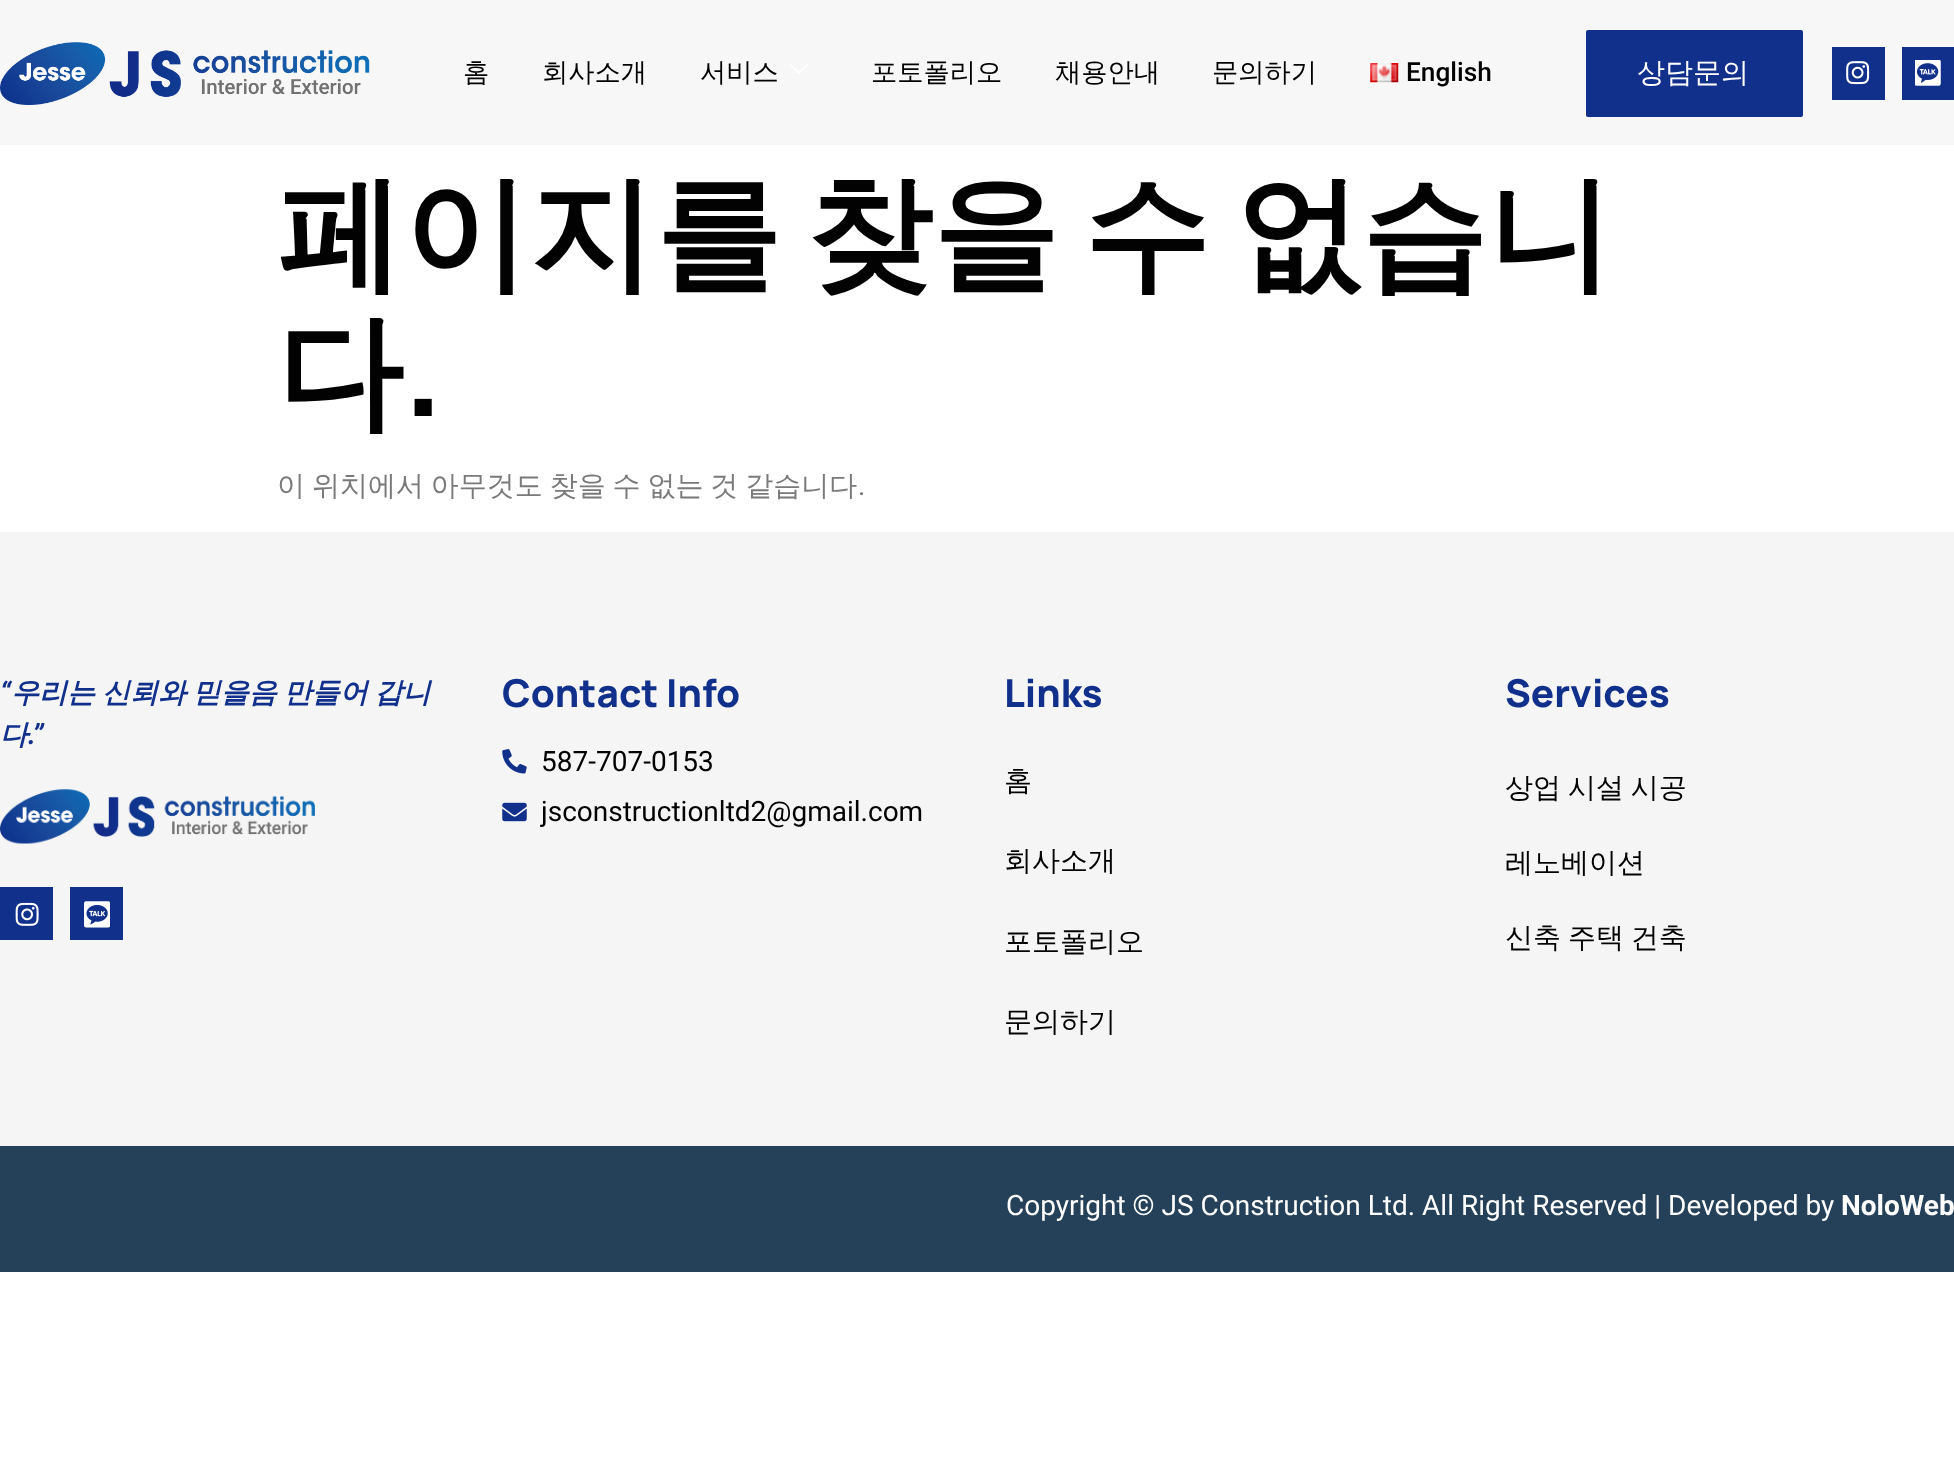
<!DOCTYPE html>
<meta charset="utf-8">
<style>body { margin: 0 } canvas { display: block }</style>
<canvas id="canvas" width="1954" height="1457"></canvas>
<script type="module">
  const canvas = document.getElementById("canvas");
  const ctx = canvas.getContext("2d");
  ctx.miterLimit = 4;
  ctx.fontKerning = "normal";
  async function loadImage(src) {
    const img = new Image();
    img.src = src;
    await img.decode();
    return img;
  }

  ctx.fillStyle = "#ffffff";
  ctx.fillRect(0, 0, 1954, 1457);
  ctx.fillStyle = "#f7f7f7";
  ctx.fillRect(0, 0, 1954, 145);
  ctx.drawImage(await loadImage("img1.png"), 0, 42, 370, 63);
  ctx.font = "500 26.25px WenQuanYi Zen Hei";
  ctx.fillStyle = "#020202";
  ctx.fillText("홈", 463, 81);
  ctx.fillText("회사소개", 542, 81);
  ctx.fillText("서비스", 700, 81);
  ctx.drawImage(await loadImage("img2.png"), 789, 64, 19, 10);
  ctx.fillText("포토폴리오", 871, 81);
  ctx.fillText("채용안내", 1055, 81);
  ctx.fillText("문의하기", 1212, 81);
  ctx.drawImage(await loadImage("img3.png"), 1370, 63, 29, 20);
  ctx.font = "500 26.25px Roboto";
  ctx.fillText("English", 1406, 81);
  ctx.fillStyle = "#11308c";
  ctx.beginPath();
  ctx.roundRect(1586, 30, 217, 87, 2);
  ctx.fill();
  ctx.font = "500 28px WenQuanYi Zen Hei";
  ctx.fillStyle = "#ffffff";
  ctx.fillText("상담문의", 1637, 82);
  ctx.fillStyle = "#11308c";
  ctx.fillRect(1832, 47, 53, 53);
  ctx.drawImage(await loadImage("img4.png"), 1846, 61, 24, 24);
  ctx.fillRect(1902, 47, 52, 53);
  ctx.drawImage(await loadImage("img5.png"), 1915, 60, 26, 26);
  ctx.wordSpacing = "-12.5px";
  ctx.font = "bold 126px WenQuanYi Zen Hei";
  ctx.fillStyle = "#020202";
  ctx.fillText("페이지를 찾을 수 없습니", 277, 277);
  ctx.wordSpacing = "0px";
  ctx.fillText("다", 277, 416);
  ctx.font = "800 126px Manrope";
  ctx.fillText(".", 403, 416);
  ctx.wordSpacing = "-1.5px";
  ctx.font = "500 28px WenQuanYi Zen Hei";
  ctx.fillStyle = "#7a7a7a";
  ctx.fillText("이 위치에서 아무것도 찾을 수 없는 것 같습니다", 277, 495);
  ctx.wordSpacing = "0px";
  ctx.font = "28px Roboto";
  ctx.fillText(".", 858, 495);
  ctx.fillStyle = "#f5f5f5";
  ctx.fillRect(0, 532, 1954, 614);
  ctx.font = "italic bold 28px Roboto";
  ctx.fillStyle = "#11308c";
  ctx.fillText("“", 0, 702);
  ctx.wordSpacing = "-1.5px";
  ctx.font = "italic bold 28px WenQuanYi Zen Hei";
  ctx.fillText("우리는 신뢰와 믿을음 만들어 갑니", 11, 702);
  ctx.wordSpacing = "0px";
  ctx.fillText("다", 0, 744);
  ctx.font = "italic bold 28px Roboto";
  ctx.fillText(".”", 28, 744);
  ctx.drawImage(await loadImage("img6.png"), 0, 789, 315, 55);
  ctx.fillRect(0, 887, 53, 53);
  ctx.drawImage(await loadImage("img7.png"), 15, 902, 24, 24);
  ctx.fillRect(70, 887, 53, 53);
  ctx.drawImage(await loadImage("img8.png"), 84, 901, 26, 27);
  ctx.font = "800 38.5px Manrope";
  ctx.fillText("Contact Info", 502, 707);
  ctx.drawImage(await loadImage("img9.png"), 502, 749, 25, 25);
  ctx.font = "28px Roboto";
  ctx.fillStyle = "#020202";
  ctx.fillText("587-707-0153", 541, 771);
  ctx.drawImage(await loadImage("img10.png"), 502, 802, 25, 20);
  ctx.fillText("jsconstructionltd2@gmail.com", 541, 821);
  ctx.font = "800 38.5px Manrope";
  ctx.fillStyle = "#11308c";
  ctx.fillText("Links", 1004, 707);
  ctx.font = "500 28px WenQuanYi Zen Hei";
  ctx.fillStyle = "#020202";
  ctx.fillText("홈", 1004, 790);
  ctx.fillText("회사소개", 1004, 870);
  ctx.fillText("포토폴리오", 1004, 951);
  ctx.fillText("문의하기", 1004, 1031);
  ctx.font = "800 38.5px Manrope";
  ctx.fillStyle = "#11308c";
  ctx.fillText("Services", 1505, 707);
  ctx.wordSpacing = "-1.5px";
  ctx.font = "500 28px WenQuanYi Zen Hei";
  ctx.fillStyle = "#020202";
  ctx.fillText("상업 시설 시공", 1505, 797);
  ctx.wordSpacing = "0px";
  ctx.fillText("레노베이션", 1505, 872);
  ctx.wordSpacing = "-1.5px";
  ctx.fillText("신축 주택 건축", 1505, 947);
  ctx.fillStyle = "#254159";
  ctx.fillRect(0, 1146, 1954, 126);
  ctx.wordSpacing = "0px";
  ctx.font = "28px Roboto";
  ctx.fillStyle = "#ffffff";
  ctx.fillText("Copyright © JS Construction Ltd. All Right Reserved | Developed by", 1006, 1215);
  ctx.font = "bold 28px Roboto";
  ctx.fillText("NoloWeb", 1841, 1215);
</script>
